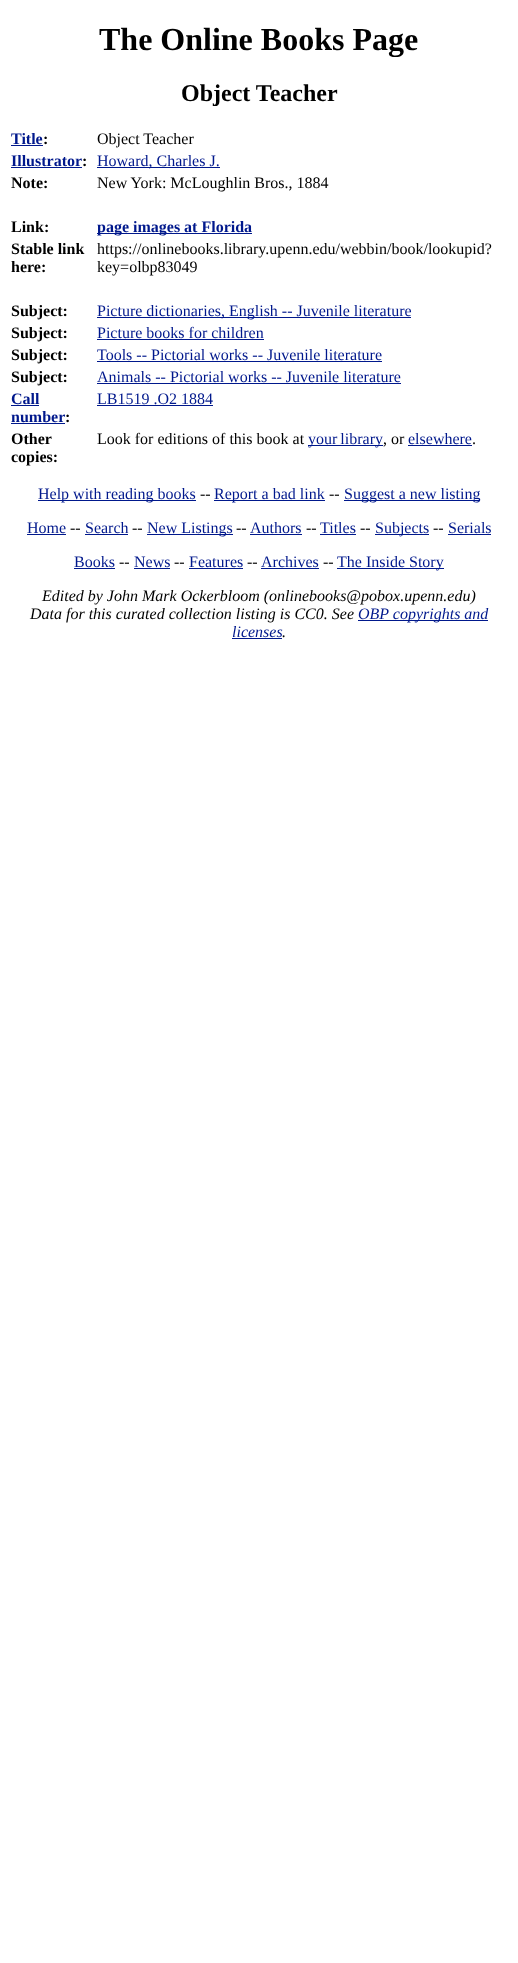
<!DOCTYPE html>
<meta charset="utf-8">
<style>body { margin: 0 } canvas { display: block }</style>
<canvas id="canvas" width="518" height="1963"></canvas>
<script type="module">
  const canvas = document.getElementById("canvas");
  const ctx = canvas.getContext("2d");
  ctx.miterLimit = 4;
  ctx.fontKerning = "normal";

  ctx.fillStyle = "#ffffff";
  ctx.fillRect(0, 0, 518, 1963);
  ctx.font = "bold 32px Liberation Serif";
  ctx.fillStyle = "#000000";
  ctx.fillText("The Online Books Page", 99, 50);
  ctx.font = "bold 24px Liberation Serif";
  ctx.fillText("Object Teacher", 181, 101);
  ctx.font = "bold 16px Liberation Serif";
  ctx.fillStyle = "#00188c";
  ctx.fillText("Title", 11, 144);
  ctx.fillStyle = "#000000";
  ctx.fillText(":", 43, 144);
  ctx.fillStyle = "#00188c";
  ctx.fillRect(11, 145, 32, 1);
  ctx.font = "16px Liberation Serif";
  ctx.fillStyle = "#000000";
  ctx.fillText("Object Teacher", 97, 144);
  ctx.font = "bold 16px Liberation Serif";
  ctx.fillStyle = "#00188c";
  ctx.fillText("Illustrator", 11, 166);
  ctx.fillStyle = "#000000";
  ctx.fillText(":", 82, 166);
  ctx.fillStyle = "#00188c";
  ctx.fillRect(11, 167, 71, 1);
  ctx.fillRect(97, 167, 123, 1);
  ctx.font = "16px Liberation Serif";
  ctx.fillText("Howard, Charles J.", 97, 166);
  ctx.font = "bold 16px Liberation Serif";
  ctx.fillStyle = "#000000";
  ctx.fillText("Note:", 11, 188);
  ctx.font = "16px Liberation Serif";
  ctx.fillText("New York: McLoughlin Bros., 1884", 97, 188);
  ctx.font = "bold 16px Liberation Serif";
  ctx.fillText("Link:", 11, 232);
  ctx.fillStyle = "#00188c";
  ctx.fillRect(97, 233, 155, 1);
  ctx.fillText("page images at Florida", 97, 232);
  ctx.fillStyle = "#000000";
  ctx.fillText("Stable link", 11, 254);
  ctx.fillText("here:", 11, 272);
  ctx.font = "16px Liberation Serif";
  ctx.fillText("https://onlinebooks.library.upenn.edu/webbin/book/lookupid?", 97, 254);
  ctx.fillText("key=olbp83049", 97, 272);
  ctx.font = "bold 16px Liberation Serif";
  ctx.fillText("Subject:", 11, 316);
  ctx.fillStyle = "#00188c";
  ctx.fillRect(97, 317, 314, 1);
  ctx.font = "16px Liberation Serif";
  ctx.fillText("Picture dictionaries, English -- Juvenile literature", 97, 316);
  ctx.font = "bold 16px Liberation Serif";
  ctx.fillStyle = "#000000";
  ctx.fillText("Subject:", 11, 338);
  ctx.font = "16px Liberation Serif";
  ctx.fillStyle = "#00188c";
  ctx.fillText("Picture books for children", 97, 338);
  ctx.fillRect(97, 339, 167, 1);
  ctx.font = "bold 16px Liberation Serif";
  ctx.fillStyle = "#000000";
  ctx.fillText("Subject:", 11, 360);
  ctx.font = "16px Liberation Serif";
  ctx.fillStyle = "#00188c";
  ctx.fillText("Tools -- Pictorial works -- Juvenile literature", 97, 360);
  ctx.fillRect(97, 361, 285, 1);
  ctx.font = "bold 16px Liberation Serif";
  ctx.fillStyle = "#000000";
  ctx.fillText("Subject:", 11, 382);
  ctx.font = "16px Liberation Serif";
  ctx.fillStyle = "#00188c";
  ctx.fillText("Animals -- Pictorial works -- Juvenile literature", 97, 382);
  ctx.fillRect(97, 383, 304, 1);
  ctx.font = "bold 16px Liberation Serif";
  ctx.fillText("Call", 11, 404);
  ctx.fillRect(11, 405, 28, 1);
  ctx.fillText("number", 11, 422);
  ctx.fillStyle = "#000000";
  ctx.fillText(":", 65, 422);
  ctx.fillStyle = "#00188c";
  ctx.fillRect(11, 423, 54, 1);
  ctx.font = "16px Liberation Serif";
  ctx.fillText("LB1519 .O2 1884", 97, 404);
  ctx.fillRect(97, 405, 116, 1);
  ctx.font = "bold 16px Liberation Serif";
  ctx.fillStyle = "#000000";
  ctx.fillText("Other", 11, 444);
  ctx.fillText("copies:", 11, 462);
  ctx.font = "16px Liberation Serif";
  ctx.fillText("Look for editions of this book at", 97, 444);
  ctx.fillStyle = "#00188c";
  ctx.fillRect(308, 445, 75, 1);
  ctx.wordSpacing = "-1px";
  ctx.fillText("your library", 308, 444);
  ctx.wordSpacing = "0px";
  ctx.fillStyle = "#000000";
  ctx.fillText(", or", 383, 444);
  ctx.fillStyle = "#00188c";
  ctx.fillText("elsewhere", 408, 444);
  ctx.fillRect(408, 445, 64, 1);
  ctx.fillStyle = "#000000";
  ctx.fillText(".", 472, 444);
  ctx.fillStyle = "#00188c";
  ctx.fillRect(38, 500, 158, 1);
  ctx.fillText("Help with reading books", 38, 499);
  ctx.fillStyle = "#000000";
  ctx.fillText("--", 200, 499);
  ctx.fillStyle = "#00188c";
  ctx.fillRect(214, 500, 111, 1);
  ctx.fillText("Report a bad link", 214, 499);
  ctx.fillStyle = "#000000";
  ctx.fillText("--", 329, 499);
  ctx.fillStyle = "#00188c";
  ctx.fillRect(344, 500, 136, 1);
  ctx.fillText("Suggest a new listing", 344, 499);
  ctx.fillText("Home", 27, 533);
  ctx.fillRect(27, 534, 39, 1);
  ctx.fillStyle = "#000000";
  ctx.fillText("--", 70, 533);
  ctx.fillStyle = "#00188c";
  ctx.fillText("Search", 85, 533);
  ctx.fillRect(85, 534, 43, 1);
  ctx.fillStyle = "#000000";
  ctx.fillText("--", 132, 533);
  ctx.fillStyle = "#00188c";
  ctx.fillRect(147, 534, 86, 1);
  ctx.fillText("New Listings", 147, 533);
  ctx.fillStyle = "#000000";
  ctx.fillText("--", 236, 533);
  ctx.fillStyle = "#00188c";
  ctx.fillText("Authors", 250, 533);
  ctx.fillRect(250, 534, 52, 1);
  ctx.fillStyle = "#000000";
  ctx.fillText("--", 306, 533);
  ctx.fillStyle = "#00188c";
  ctx.fillText("Titles", 320, 533);
  ctx.fillRect(320, 534, 36, 1);
  ctx.fillStyle = "#000000";
  ctx.fillText("--", 360, 533);
  ctx.fillStyle = "#00188c";
  ctx.fillRect(375, 534, 54, 1);
  ctx.fillText("Subjects", 375, 533);
  ctx.fillStyle = "#000000";
  ctx.fillText("--", 433, 533);
  ctx.fillStyle = "#00188c";
  ctx.fillText("Serials", 448, 533);
  ctx.fillRect(448, 534, 43, 1);
  ctx.fillText("Books", 74, 567);
  ctx.fillRect(74, 568, 41, 1);
  ctx.fillStyle = "#000000";
  ctx.fillText("--", 119, 567);
  ctx.fillStyle = "#00188c";
  ctx.fillText("News", 134, 567);
  ctx.fillRect(134, 568, 36, 1);
  ctx.fillStyle = "#000000";
  ctx.fillText("--", 174, 567);
  ctx.fillStyle = "#00188c";
  ctx.fillText("Features", 189, 567);
  ctx.fillRect(189, 568, 54, 1);
  ctx.fillStyle = "#000000";
  ctx.fillText("--", 247, 567);
  ctx.fillStyle = "#00188c";
  ctx.fillText("Archives", 261, 567);
  ctx.fillRect(261, 568, 58, 1);
  ctx.fillStyle = "#000000";
  ctx.fillText("--", 323, 567);
  ctx.fillStyle = "#00188c";
  ctx.fillRect(337, 568, 107, 1);
  ctx.fillText("The Inside Story", 337, 567);
  ctx.font = "italic 16px Liberation Serif";
  ctx.fillStyle = "#000000";
  ctx.fillText("Edited by John Mark Ockerbloom (onlinebooks@pobox.upenn.edu)", 42, 601);
  ctx.fillText("Data for this curated collection listing is CC0. See", 30, 619);
  ctx.fillStyle = "#00188c";
  ctx.fillRect(358, 620, 130, 1);
  ctx.fillText("OBP copyrights and", 358, 619);
  ctx.fillText("licenses", 232, 637);
  ctx.fillStyle = "#000000";
  ctx.fillText(".", 282, 637);
  ctx.fillStyle = "#00188c";
  ctx.fillRect(232, 638, 50, 1);
</script>
